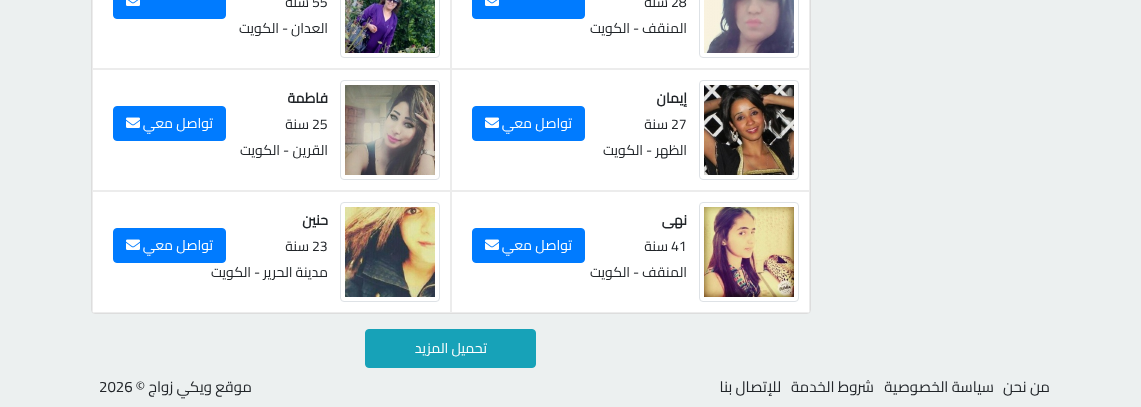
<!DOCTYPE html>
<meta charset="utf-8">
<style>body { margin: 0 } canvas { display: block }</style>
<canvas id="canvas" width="1141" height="407"></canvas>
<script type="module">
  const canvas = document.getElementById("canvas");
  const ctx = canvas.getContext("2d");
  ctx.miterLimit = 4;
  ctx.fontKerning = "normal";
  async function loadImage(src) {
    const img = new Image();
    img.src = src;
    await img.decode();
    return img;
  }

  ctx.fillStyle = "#ecf0f0";
  ctx.fillRect(0, 0, 1141, 407);
  ctx.fillStyle = "#ffffff";
  ctx.beginPath();
  ctx.roundRect(91.5, -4.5, 719, 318, 3.5);
  ctx.fill();
  ctx.strokeStyle = "#dddddd";
  ctx.stroke();
  ctx.strokeStyle = "#ececec";
  ctx.strokeRect(451.5, -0.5, 358, 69);
  ctx.beginPath();
  ctx.roundRect(699.5, -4.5, 99, 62, 3.5);
  ctx.strokeStyle = "#dee2e6";
  ctx.stroke();
  ctx.font = "14px Cairo";
  ctx.fillStyle = "#212529";
  ctx.fillText("28", 671, 7);
  ctx.direction = "rtl";
  ctx.fillText("سنة", 668, 7);
  ctx.fillText("المنقف", 687, 33);
  ctx.direction = "ltr";
  ctx.fillText("-", 633, 33);
  ctx.direction = "rtl";
  ctx.fillText("الكويت", 630, 33);
  ctx.fillStyle = "#007bff";
  ctx.beginPath();
  ctx.roundRect(472.5, -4.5, 112, 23, 3.5);
  ctx.fill();
  ctx.strokeStyle = "#007bff";
  ctx.stroke();
  ctx.drawImage(await loadImage("img1.png"), 485, 0, 14, 6);
  ctx.drawImage(await loadImage("img2.png"), 704, 0, 90, 53);
  ctx.strokeStyle = "#ececec";
  ctx.strokeRect(92.5, -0.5, 358, 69);
  ctx.beginPath();
  ctx.roundRect(340.5, -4.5, 99, 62, 3.5);
  ctx.strokeStyle = "#dee2e6";
  ctx.stroke();
  ctx.direction = "ltr";
  ctx.fillStyle = "#212529";
  ctx.fillText("55", 312, 7);
  ctx.direction = "rtl";
  ctx.fillText("سنة", 309, 7);
  ctx.fillText("العدان", 328, 33);
  ctx.direction = "ltr";
  ctx.fillText("-", 282, 33);
  ctx.direction = "rtl";
  ctx.fillText("الكويت", 279, 33);
  ctx.fillStyle = "#007bff";
  ctx.beginPath();
  ctx.roundRect(113.5, -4.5, 112, 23, 3.5);
  ctx.fill();
  ctx.strokeStyle = "#007bff";
  ctx.stroke();
  ctx.drawImage(await loadImage("img1.png"), 126, 0, 14, 6);
  ctx.drawImage(await loadImage("img3.png"), 345, 0, 90, 53);
  ctx.strokeStyle = "#ececec";
  ctx.strokeRect(451.5, 69.5, 358, 121);
  ctx.beginPath();
  ctx.roundRect(699.5, 80.5, 99, 99, 3.5);
  ctx.strokeStyle = "#dee2e6";
  ctx.stroke();
  ctx.drawImage(await loadImage("img4.png"), 704, 85, 90, 90);
  ctx.font = "bold 14px Cairo";
  ctx.fillStyle = "#212529";
  ctx.fillText("إيمان", 687, 103);
  ctx.direction = "ltr";
  ctx.font = "14px Cairo";
  ctx.fillText("27", 671, 129);
  ctx.direction = "rtl";
  ctx.fillText("سنة", 668, 129);
  ctx.fillText("الظهر", 687, 155);
  ctx.direction = "ltr";
  ctx.fillText("-", 646, 155);
  ctx.direction = "rtl";
  ctx.fillText("الكويت", 643, 155);
  ctx.fillStyle = "#007bff";
  ctx.beginPath();
  ctx.roundRect(472.5, 106.5, 112, 34, 3.5);
  ctx.fill();
  ctx.strokeStyle = "#007bff";
  ctx.stroke();
  ctx.fillStyle = "#ffffff";
  ctx.fillText("تواصل معي", 572, 128);
  ctx.drawImage(await loadImage("img5.png"), 485, 117, 14, 11);
  ctx.strokeStyle = "#ececec";
  ctx.strokeRect(92.5, 69.5, 358, 121);
  ctx.beginPath();
  ctx.roundRect(340.5, 80.5, 99, 99, 3.5);
  ctx.strokeStyle = "#dee2e6";
  ctx.stroke();
  ctx.drawImage(await loadImage("img6.png"), 345, 85, 90, 90);
  ctx.font = "bold 14px Cairo";
  ctx.fillStyle = "#212529";
  ctx.fillText("فاطمة", 328, 103);
  ctx.direction = "ltr";
  ctx.font = "14px Cairo";
  ctx.fillText("25", 312, 129);
  ctx.direction = "rtl";
  ctx.fillText("سنة", 309, 129);
  ctx.fillText("القرين", 328, 155);
  ctx.direction = "ltr";
  ctx.fillText("-", 283, 155);
  ctx.direction = "rtl";
  ctx.fillText("الكويت", 280, 155);
  ctx.fillStyle = "#007bff";
  ctx.beginPath();
  ctx.roundRect(113.5, 106.5, 112, 34, 3.5);
  ctx.fill();
  ctx.strokeStyle = "#007bff";
  ctx.stroke();
  ctx.fillStyle = "#ffffff";
  ctx.fillText("تواصل معي", 213, 128);
  ctx.drawImage(await loadImage("img5.png"), 126, 117, 14, 11);
  ctx.fillStyle = "#ececec";
  ctx.beginPath();
  ctx.moveTo(451, 191);
  ctx.lineTo(451, 313);
  ctx.lineTo(807, 313);
  ctx.bezierCurveTo(809, 313, 810, 312, 810, 310);
  ctx.lineTo(810, 191);
  ctx.closePath();
  ctx.moveTo(452, 192);
  ctx.lineTo(452, 312);
  ctx.lineTo(809, 312);
  ctx.lineTo(809, 192);
  ctx.closePath();
  ctx.fill("evenodd");
  ctx.beginPath();
  ctx.roundRect(699.5, 202.5, 99, 99, 3.5);
  ctx.strokeStyle = "#dee2e6";
  ctx.stroke();
  ctx.drawImage(await loadImage("img7.png"), 704, 207, 90, 90);
  ctx.font = "bold 14px Cairo";
  ctx.fillStyle = "#212529";
  ctx.fillText("نهى", 687, 225);
  ctx.direction = "ltr";
  ctx.font = "14px Cairo";
  ctx.fillText("41", 671, 251);
  ctx.direction = "rtl";
  ctx.fillText("سنة", 668, 251);
  ctx.fillText("المنقف", 687, 277);
  ctx.direction = "ltr";
  ctx.fillText("-", 633, 277);
  ctx.direction = "rtl";
  ctx.fillText("الكويت", 630, 277);
  ctx.fillStyle = "#007bff";
  ctx.beginPath();
  ctx.roundRect(472.5, 228.5, 112, 34, 3.5);
  ctx.fill();
  ctx.strokeStyle = "#007bff";
  ctx.stroke();
  ctx.fillStyle = "#ffffff";
  ctx.fillText("تواصل معي", 572, 250);
  ctx.drawImage(await loadImage("img5.png"), 485, 239, 14, 11);
  ctx.fillStyle = "#ececec";
  ctx.beginPath();
  ctx.moveTo(92, 191);
  ctx.lineTo(92, 310);
  ctx.bezierCurveTo(92, 312, 93, 313, 95, 313);
  ctx.lineTo(451, 313);
  ctx.lineTo(451, 191);
  ctx.closePath();
  ctx.moveTo(93, 192);
  ctx.lineTo(93, 312);
  ctx.lineTo(450, 312);
  ctx.lineTo(450, 192);
  ctx.closePath();
  ctx.fill("evenodd");
  ctx.beginPath();
  ctx.roundRect(340.5, 202.5, 99, 99, 3.5);
  ctx.strokeStyle = "#dee2e6";
  ctx.stroke();
  ctx.drawImage(await loadImage("img8.png"), 345, 207, 90, 90);
  ctx.font = "bold 14px Cairo";
  ctx.fillStyle = "#212529";
  ctx.fillText("حنين", 328, 225);
  ctx.direction = "ltr";
  ctx.font = "14px Cairo";
  ctx.fillText("23", 312, 251);
  ctx.direction = "rtl";
  ctx.fillText("سنة", 309, 251);
  ctx.fillText("مدينة الحرير", 328, 277);
  ctx.direction = "ltr";
  ctx.fillText("-", 254, 277);
  ctx.direction = "rtl";
  ctx.fillText("الكويت", 251, 277);
  ctx.fillStyle = "#007bff";
  ctx.beginPath();
  ctx.roundRect(113.5, 228.5, 112, 34, 3.5);
  ctx.fill();
  ctx.strokeStyle = "#007bff";
  ctx.stroke();
  ctx.fillStyle = "#ffffff";
  ctx.fillText("تواصل معي", 213, 250);
  ctx.drawImage(await loadImage("img5.png"), 126, 239, 14, 11);
  ctx.fillStyle = "#17a2b8";
  ctx.beginPath();
  ctx.roundRect(365.5, 329.5, 170, 38, 3.5);
  ctx.fill();
  ctx.strokeStyle = "#17a2b8";
  ctx.stroke();
  ctx.fillStyle = "#ffffff";
  ctx.fillText("تحميل المزيد", 487, 353);
  ctx.font = "15px Cairo";
  ctx.fillStyle = "#212529";
  ctx.fillText("من نحن", 1050, 392);
  ctx.fillText("سياسة الخصوصية", 994, 392);
  ctx.fillText("شروط الخدمة", 874, 392);
  ctx.fillText("للإتصال بنا", 781, 392);
  ctx.fillText("موقع ويكي زواج ©", 252, 392);
  ctx.direction = "ltr";
  ctx.fillText("2026", 99, 392);
</script>
